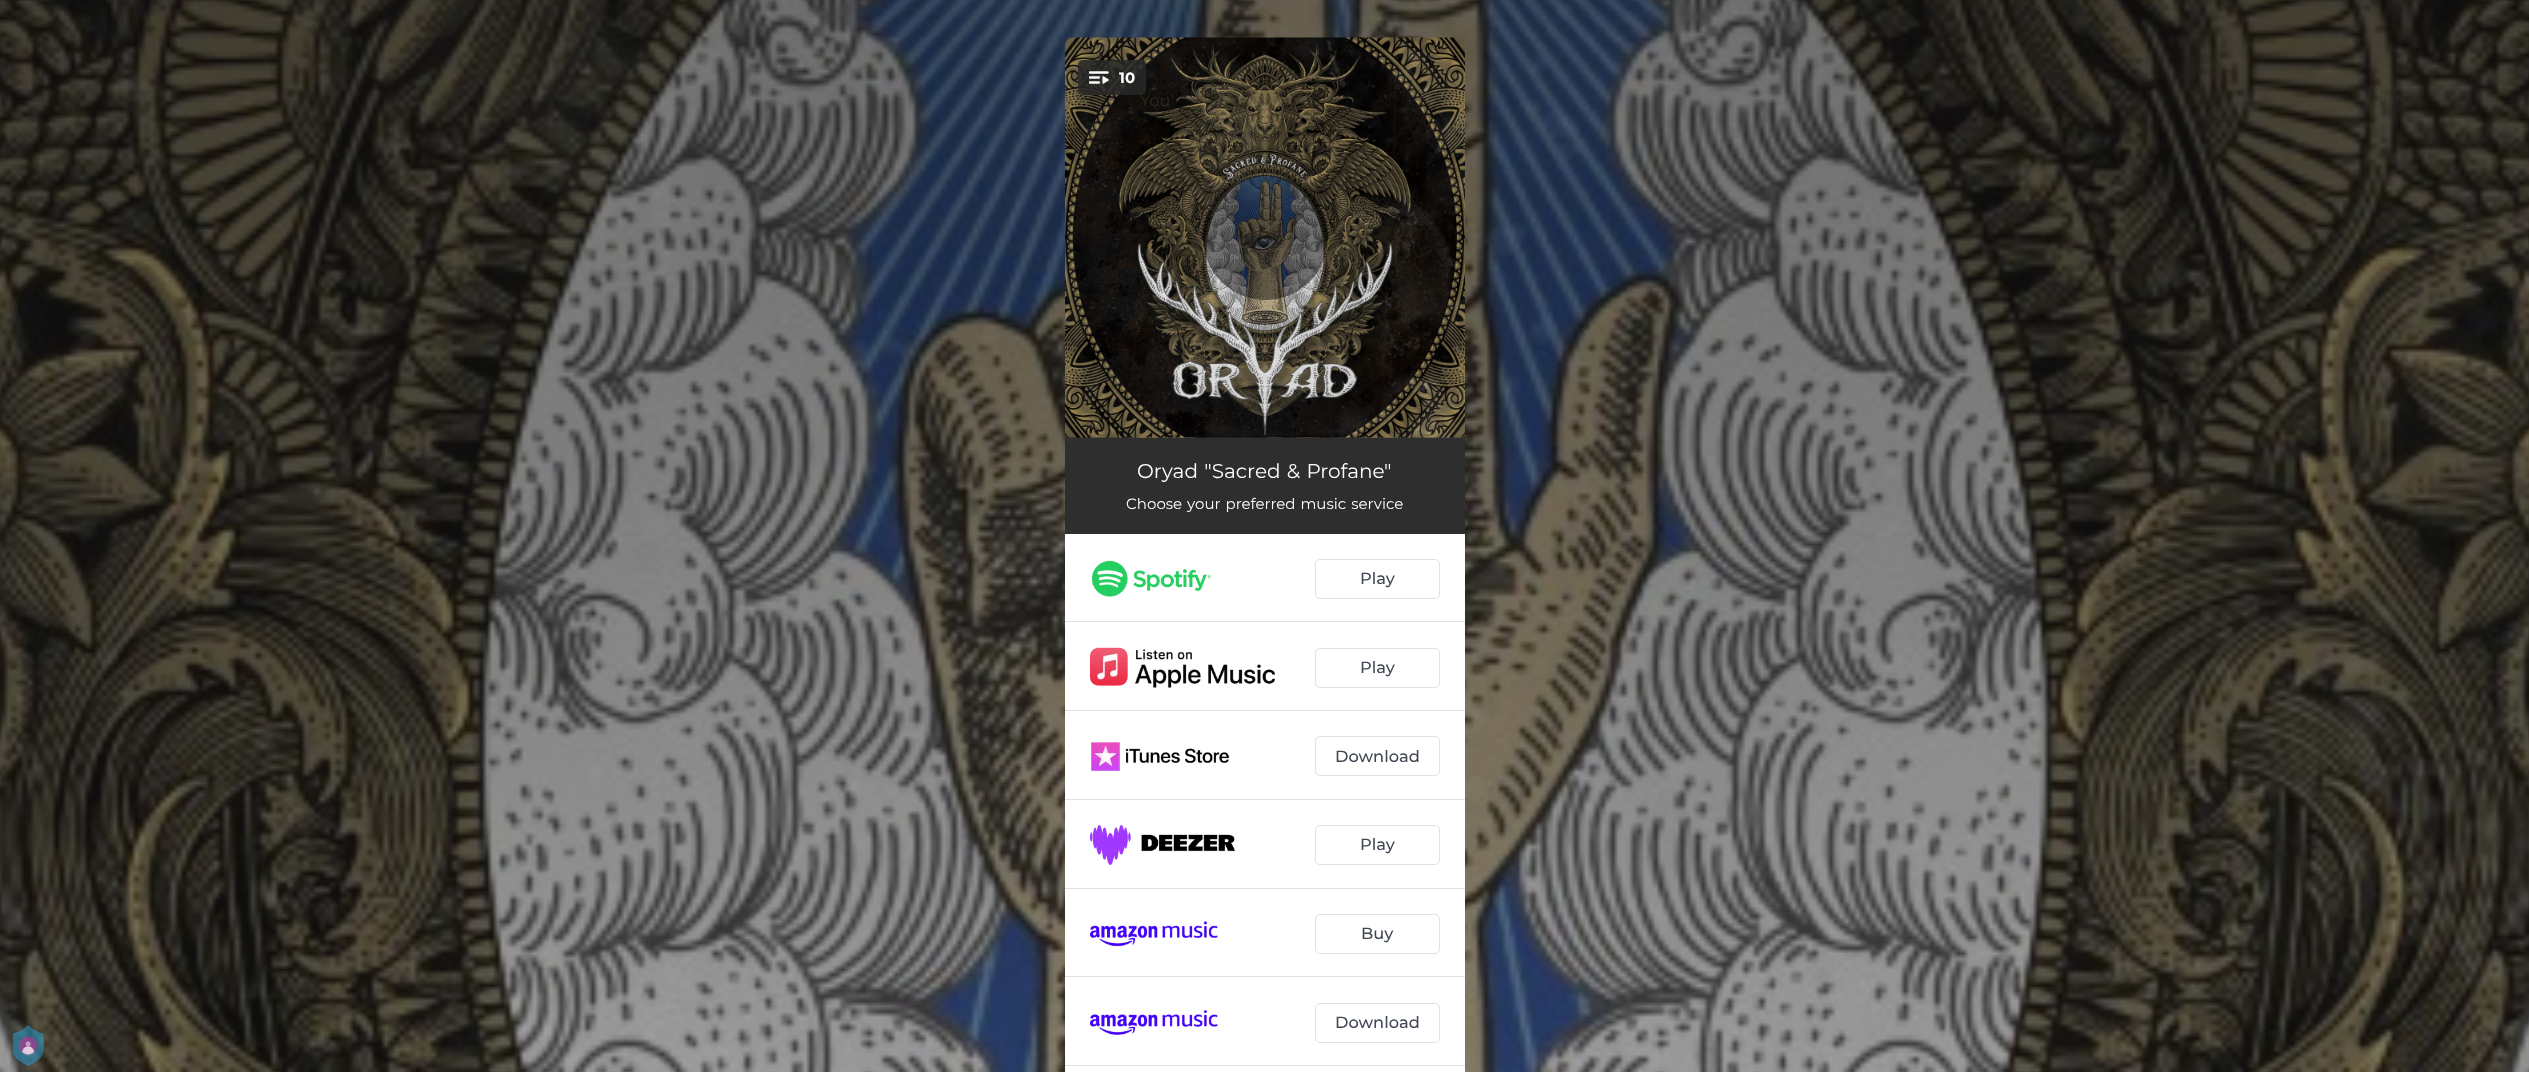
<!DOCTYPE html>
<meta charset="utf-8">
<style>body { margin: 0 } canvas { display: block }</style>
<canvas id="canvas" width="2529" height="1072"></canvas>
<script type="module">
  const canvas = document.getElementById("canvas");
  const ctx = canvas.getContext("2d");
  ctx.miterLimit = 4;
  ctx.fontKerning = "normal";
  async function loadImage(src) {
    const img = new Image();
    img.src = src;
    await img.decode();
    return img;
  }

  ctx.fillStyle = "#ffffff";
  ctx.fillRect(0, 0, 2529, 1072);
  ctx.drawImage(await loadImage("img1.png"), 0, 0, 2529, 1072);
  ctx.drawImage(await loadImage("img2.png"), 1065, 37, 400, 401);
  ctx.wordSpacing = "1px";
  ctx.font = "16.25px Montserrat";
  ctx.fillStyle = "#2e291e";
  ctx.fillText("You'", 1140, 106);
  ctx.fillStyle = "rgba(40, 40, 40, 0.85)";
  ctx.beginPath();
  ctx.roundRect(1078, 60, 68, 35, 5);
  ctx.fill();
  ctx.drawImage(await loadImage("img3.png"), 1089, 71, 20, 13);
  ctx.wordSpacing = "0px";
  ctx.font = "bold 15px Montserrat";
  ctx.fillStyle = "#ffffff";
  ctx.fillText("10", 1119, 83);
  ctx.fillStyle = "rgba(0, 0, 0, 0.45)";
  ctx.beginPath();
  ctx.arc(1265.5, 237.5, 62.5, 0, Math.PI * 2);
  ctx.fill();
  ctx.fillStyle = "#2e2e2e";
  ctx.fillRect(1065, 438, 400, 96);
  ctx.wordSpacing = "1px";
  ctx.font = "20px Montserrat";
  ctx.fillStyle = "#ffffff";
  ctx.fillText("Oryad \"Sacred & Profane\"", 1137, 478);
  ctx.font = "15px Montserrat";
  ctx.fillText("Choose your preferred music service", 1126, 509);
  ctx.fillRect(1065, 534, 400, 538);
  ctx.fillStyle = "#e1e1e4";
  ctx.fillRect(1065, 621, 400, 1);
  ctx.drawImage(await loadImage("img4.png"), 1091, 560, 121, 37);
  ctx.beginPath();
  ctx.roundRect(1315.5, 559.5, 124, 39, 4.5);
  ctx.strokeStyle = "#e1e1e4";
  ctx.stroke();
  ctx.wordSpacing = "0px";
  ctx.font = "500 16.25px Montserrat";
  ctx.fillStyle = "#414754";
  ctx.fillText("Play", 1360, 584);
  ctx.fillStyle = "#e1e1e4";
  ctx.fillRect(1065, 710, 400, 1);
  ctx.drawImage(await loadImage("img5.png"), 1090, 647, 185, 41);
  ctx.beginPath();
  ctx.roundRect(1315.5, 648.5, 124, 39, 4.5);
  ctx.stroke();
  ctx.fillStyle = "#414754";
  ctx.fillText("Play", 1360, 673);
  ctx.fillStyle = "#e1e1e4";
  ctx.fillRect(1065, 799, 400, 1);
  ctx.drawImage(await loadImage("img6.png"), 1091, 742, 139, 29);
  ctx.beginPath();
  ctx.roundRect(1315.5, 736.5, 124, 39, 4.5);
  ctx.stroke();
  ctx.fillStyle = "#414754";
  ctx.fillText("Download", 1335, 762);
  ctx.fillStyle = "#e1e1e4";
  ctx.fillRect(1065, 888, 400, 1);
  ctx.drawImage(await loadImage("img7.png"), 1090, 825, 145, 40);
  ctx.beginPath();
  ctx.roundRect(1315.5, 825.5, 124, 39, 4.5);
  ctx.stroke();
  ctx.fillStyle = "#414754";
  ctx.fillText("Play", 1360, 850);
  ctx.fillStyle = "#e1e1e4";
  ctx.fillRect(1065, 976, 400, 1);
  ctx.drawImage(await loadImage("img8.png"), 1090, 921, 128, 26);
  ctx.beginPath();
  ctx.roundRect(1315.5, 914.5, 124, 39, 4.5);
  ctx.stroke();
  ctx.fillStyle = "#414754";
  ctx.fillText("Buy", 1361, 939);
  ctx.fillStyle = "#e1e1e4";
  ctx.fillRect(1065, 1065, 400, 1);
  ctx.drawImage(await loadImage("img9.png"), 1090, 1010, 128, 25);
  ctx.beginPath();
  ctx.roundRect(1315.5, 1003.5, 124, 39, 4.5);
  ctx.stroke();
  ctx.fillStyle = "#414754";
  ctx.fillText("Download", 1335, 1028);
  ctx.drawImage(await loadImage("img10.png"), 13, 1025, 31, 41);
</script>
